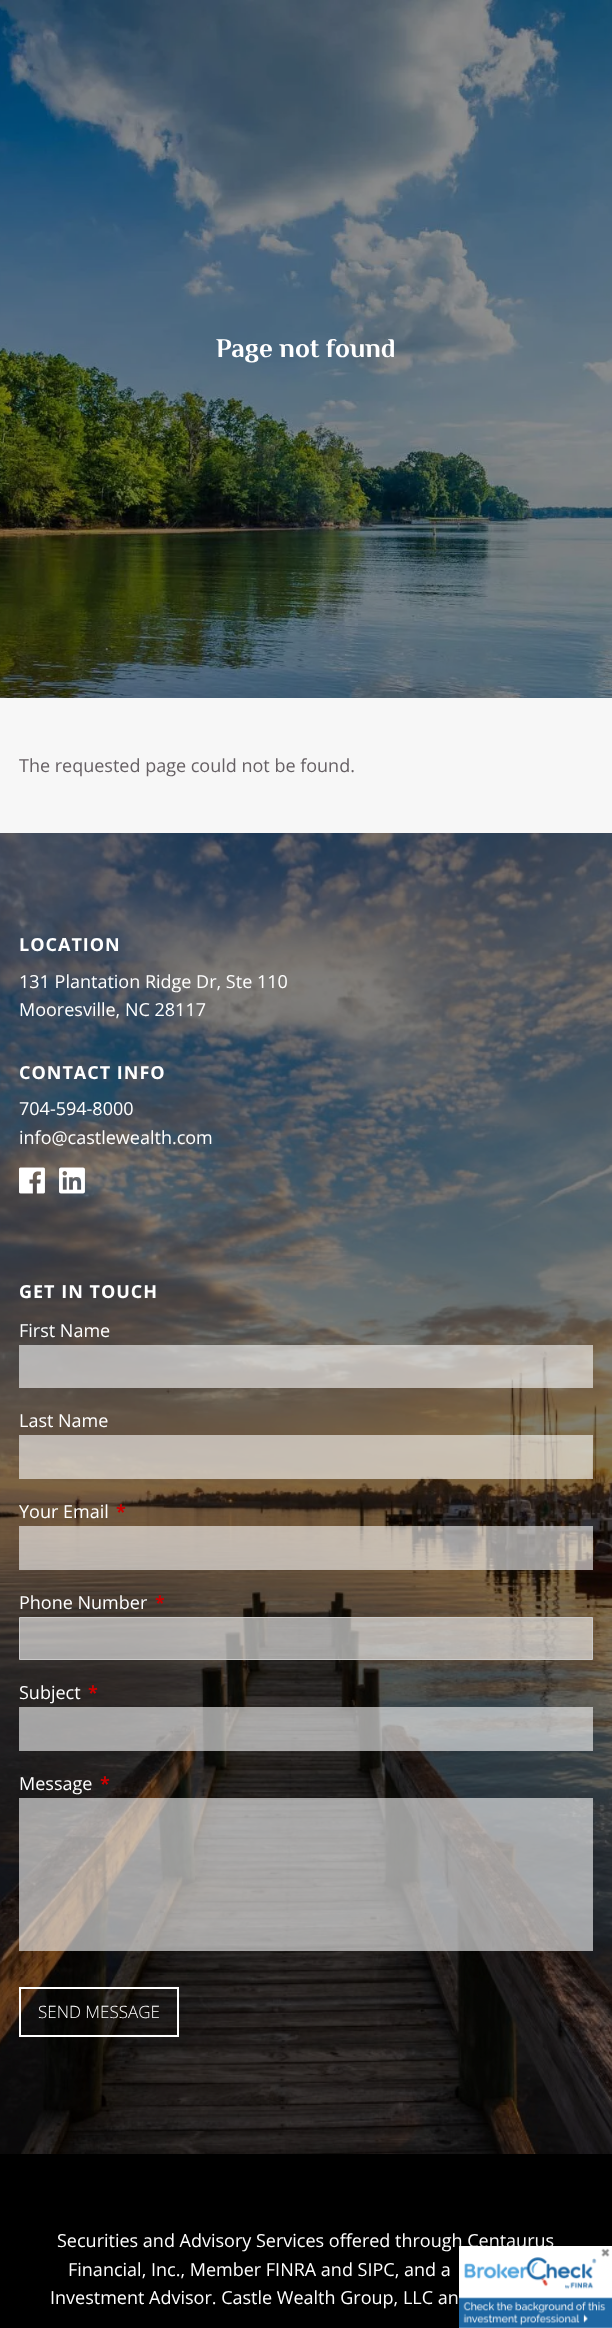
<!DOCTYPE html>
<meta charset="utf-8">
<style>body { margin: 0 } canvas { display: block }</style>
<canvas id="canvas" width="612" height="2328"></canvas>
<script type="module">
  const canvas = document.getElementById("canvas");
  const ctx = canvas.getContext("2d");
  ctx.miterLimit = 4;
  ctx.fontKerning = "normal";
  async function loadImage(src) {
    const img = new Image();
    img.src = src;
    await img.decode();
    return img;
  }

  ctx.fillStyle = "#f7f7f7";
  ctx.fillRect(0, 0, 612, 2328);
  ctx.drawImage(await loadImage("img1.png"), 0, 0, 612, 698);
  ctx.font = "bold 27px Philosopher";
  ctx.fillStyle = "#ffffff";
  ctx.fillText("Page not found", 216, 357);
  ctx.font = "18px Open Sans";
  ctx.fillStyle = "#666064";
  ctx.fillText("The requested page could not be found.", 19, 772);
  ctx.drawImage(await loadImage("img2.png"), 0, 833, 612, 1321);
  ctx.letterSpacing = "1px";
  ctx.font = "bold 18px Open Sans";
  ctx.fillStyle = "#ffffff";
  ctx.fillText("LOCATION", 19, 951);
  ctx.letterSpacing = "0px";
  ctx.font = "18px Open Sans";
  ctx.fillText("131 Plantation Ridge Dr, Ste 110", 19, 988);
  ctx.fillText("Mooresville, NC 28117", 19, 1016);
  ctx.letterSpacing = "1px";
  ctx.font = "bold 18px Open Sans";
  ctx.fillText("CONTACT INFO", 19, 1079);
  ctx.letterSpacing = "0px";
  ctx.font = "18px Open Sans";
  ctx.fillText("704-594-8000", 19, 1115);
  ctx.fillText("info@castlewealth.com", 19, 1144);
  ctx.drawImage(await loadImage("img3.png"), 19, 1167, 26, 27);
  ctx.drawImage(await loadImage("img4.png"), 59, 1167, 26, 27);
  ctx.letterSpacing = "1px";
  ctx.font = "bold 18px Open Sans";
  ctx.fillText("GET IN TOUCH", 19, 1298);
  ctx.letterSpacing = "0px";
  ctx.font = "18px Open Sans";
  ctx.fillText("First Name", 19, 1337);
  ctx.fillStyle = "rgba(254, 254, 254, 0.6)";
  ctx.fillRect(19, 1345, 574, 43);
  ctx.fillStyle = "#ffffff";
  ctx.fillText("Last Name", 19, 1427);
  ctx.fillStyle = "rgba(254, 254, 254, 0.6)";
  ctx.fillRect(19, 1435, 574, 44);
  ctx.fillStyle = "#ffffff";
  ctx.fillText("Your Email", 19, 1518);
  ctx.font = "bold 18px Open Sans";
  ctx.fillStyle = "#cc0000";
  ctx.fillText("*", 116, 1518);
  ctx.fillStyle = "rgba(254, 254, 254, 0.6)";
  ctx.fillRect(19, 1526, 574, 44);
  ctx.font = "18px Open Sans";
  ctx.fillStyle = "#ffffff";
  ctx.fillText("Phone Number", 19, 1609);
  ctx.font = "bold 18px Open Sans";
  ctx.fillStyle = "#cc0000";
  ctx.fillText("*", 155, 1609);
  ctx.fillStyle = "rgba(254, 254, 254, 0.6)";
  ctx.beginPath();
  ctx.rect(19.5, 1617.5, 573, 42);
  ctx.fill();
  ctx.strokeStyle = "#cacaca";
  ctx.stroke();
  ctx.font = "18px Open Sans";
  ctx.fillStyle = "#ffffff";
  ctx.fillText("Subject", 19, 1699);
  ctx.font = "bold 18px Open Sans";
  ctx.fillStyle = "#cc0000";
  ctx.fillText("*", 88, 1699);
  ctx.fillStyle = "rgba(254, 254, 254, 0.6)";
  ctx.fillRect(19, 1707, 574, 44);
  ctx.font = "18px Open Sans";
  ctx.fillStyle = "#ffffff";
  ctx.fillText("Message", 19, 1790);
  ctx.font = "bold 18px Open Sans";
  ctx.fillStyle = "#cc0000";
  ctx.fillText("*", 100, 1790);
  ctx.fillStyle = "rgba(254, 254, 254, 0.6)";
  ctx.fillRect(19, 1798, 574, 153);
  ctx.strokeStyle = "#ffffff";
  ctx.lineWidth = 2;
  ctx.strokeRect(20, 1988, 158, 48);
  ctx.font = "300 17px Open Sans";
  ctx.fillStyle = "#ffffff";
  ctx.fillText("SEND MESSAGE", 38, 2018);
  ctx.fillStyle = "#000000";
  ctx.fillRect(0, 2154, 612, 174);
  ctx.font = "18px Open Sans";
  ctx.fillStyle = "#ffffff";
  ctx.fillText("Securities and Advisory Services offered through Centaurus", 57, 2247);
  ctx.fillText("Financial, Inc., Member FINRA and SIPC, and a", 68, 2276);
  ctx.fillText("Investment Advisor. Castle Wealth Group, LLC an", 50, 2304);
  ctx.fillRect(459, 2246, 153, 82);
  ctx.save();
  ctx.beginPath();
  ctx.moveTo(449, 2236);
  ctx.lineTo(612, 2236);
  ctx.lineTo(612, 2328);
  ctx.lineTo(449, 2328);
  ctx.closePath();
  ctx.moveTo(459, 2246);
  ctx.lineTo(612, 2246);
  ctx.lineTo(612, 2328);
  ctx.lineTo(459, 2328);
  ctx.closePath();
  ctx.clip("evenodd");
  ctx.fillStyle = "rgba(0, 0, 0, 0.25)";
  ctx.filter = "blur(2.5px)";
  ctx.beginPath();
  ctx.rect(458, 2245, 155, 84);
  ctx.fill();
  ctx.filter = "none";
  ctx.restore();
  ctx.drawImage(await loadImage("img5.png"), 459, 2248, 153, 80);
</script>
